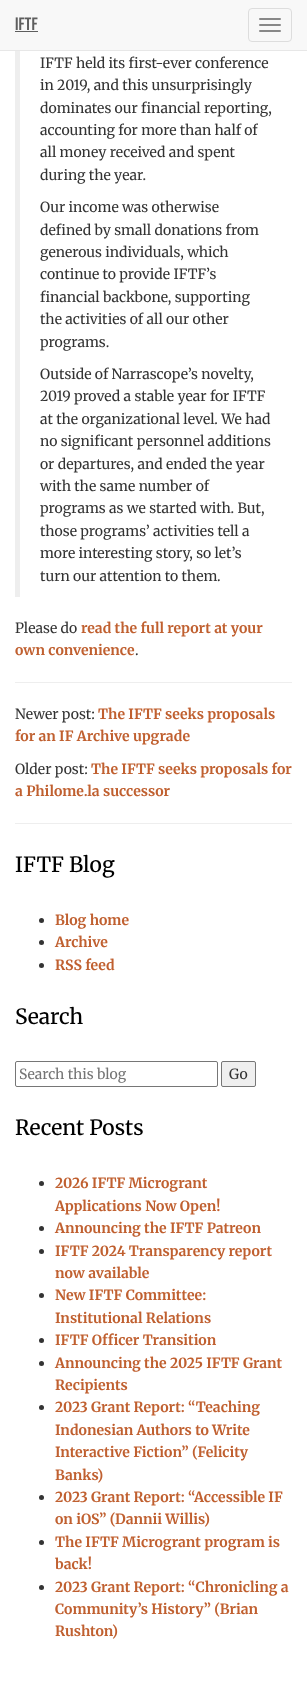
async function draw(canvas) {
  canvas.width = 307
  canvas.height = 1689
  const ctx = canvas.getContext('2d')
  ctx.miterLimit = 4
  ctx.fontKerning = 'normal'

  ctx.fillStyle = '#fff'
  ctx.fillRect(0, 0, 307, 1689)
  ctx.fillStyle = '#f8f8f8'
  ctx.fillRect(0, 0, 307, 50)
  ctx.fillStyle = '#e7e7e7'
  ctx.fillRect(0, 50, 307, 1)
  ctx.font = '18px Bebas Neue'
  ctx.fillStyle = '#5e5e5e'
  ctx.fillText('IFTF', 15, 30)
  ctx.fillRect(15, 31, 23, 1)
  ctx.beginPath()
  ctx.roundRect(248.5, 8.5, 43, 33, 3.5)
  ctx.strokeStyle = '#ddd'
  ctx.stroke()
  ctx.fillStyle = '#888'
  ctx.beginPath()
  ctx.roundRect(259, 18, 22, 2, 1)
  ctx.fill()
  ctx.beginPath()
  ctx.roundRect(259, 24, 22, 2, 1)
  ctx.fill()
  ctx.beginPath()
  ctx.roundRect(259, 30, 22, 2, 1)
  ctx.fill()
  ctx.fillStyle = '#eee'
  ctx.fillRect(15, 51, 5, 546)
  ctx.font = '14px Merriweather'
  ctx.fillStyle = '#333'
  ctx.fillText('IFTF held its first-ever conference', 40, 68)
  ctx.fillText('in 2019, and this unsurprisingly', 40, 90)
  ctx.fillText('dominates our financial reporting,', 40, 113)
  ctx.fillText('accounting for more than half of', 40, 135)
  ctx.fillText('all money received and spent', 40, 157)
  ctx.fillText('during the year.', 40, 180)
  ctx.fillText('Our income was otherwise', 40, 212)
  ctx.fillText('defined by small donations from', 40, 235)
  ctx.fillText('generous individuals, which', 40, 257)
  ctx.fillText('continue to provide IFTF’s', 40, 279)
  ctx.fillText('financial backbone, supporting', 40, 302)
  ctx.fillText('the activities of all our other', 40, 324)
  ctx.fillText('programs.', 40, 347)
  ctx.fillText('Outside of Narrascope’s novelty,', 40, 379)
  ctx.fillText('2019 proved a stable year for IFTF', 40, 401)
  ctx.fillText('at the organizational level. We had', 40, 424)
  ctx.fillText('no significant personnel additions', 40, 446)
  ctx.fillText('or departures, and ended the year', 40, 469)
  ctx.fillText('with the same number of', 40, 491)
  ctx.fillText('programs as we started with. But,', 40, 513)
  ctx.fillText('those programs’ activities tell a', 40, 536)
  ctx.fillText('more interesting story, so let’s', 40, 558)
  ctx.fillText('turn our attention to them.', 40, 581)
  ctx.fillText('Please do', 15, 633)
  ctx.font = 'bold 14px Merriweather'
  ctx.fillStyle = '#c06030'
  ctx.fillText('read the full report at your', 81, 633)
  ctx.fillText('own convenience', 15, 655)
  ctx.font = '14px Merriweather'
  ctx.fillStyle = '#333'
  ctx.fillText('.', 135, 655)
  ctx.fillStyle = '#eee'
  ctx.fillRect(15, 682, 277, 1)
  ctx.fillStyle = '#333'
  ctx.fillText('Newer post:', 15, 719)
  ctx.font = 'bold 14px Merriweather'
  ctx.fillStyle = '#c06030'
  ctx.fillText('The IFTF seeks proposals', 98, 719)
  ctx.fillText('for an IF Archive upgrade', 15, 741)
  ctx.font = '14px Merriweather'
  ctx.fillStyle = '#333'
  ctx.fillText('Older post:', 15, 774)
  ctx.font = 'bold 14px Merriweather'
  ctx.fillStyle = '#c06030'
  ctx.fillText('The IFTF seeks proposals for', 91, 774)
  ctx.fillText('a Philome.la successor', 15, 796)
  ctx.fillStyle = '#eee'
  ctx.fillRect(15, 823, 277, 1)
  ctx.font = '500 21px Merriweather'
  ctx.fillStyle = '#000'
  ctx.fillText('IFTF Blog', 15, 872)
  ctx.fillStyle = '#333'
  ctx.beginPath()
  ctx.arc(41.5, 920.5, 2.5, 0, 2 * Math.PI)
  ctx.fill()
  ctx.font = 'bold 14px Merriweather'
  ctx.fillStyle = '#c06030'
  ctx.fillText('Blog home', 55, 925)
  ctx.fillStyle = '#333'
  ctx.beginPath()
  ctx.arc(41.5, 942.5, 2.5, 0, 2 * Math.PI)
  ctx.fill()
  ctx.fillStyle = '#c06030'
  ctx.fillText('Archive', 55, 947)
  ctx.fillStyle = '#333'
  ctx.beginPath()
  ctx.arc(41.5, 965.5, 2.5, 0, 2 * Math.PI)
  ctx.fill()
  ctx.fillStyle = '#c06030'
  ctx.fillText('RSS feed', 55, 970)
  ctx.font = '500 21px Merriweather'
  ctx.fillStyle = '#000'
  ctx.fillText('Search', 15, 1024)
  ctx.beginPath()
  ctx.roundRect(15.5, 1061.5, 202, 25, 1.5)
  ctx.strokeStyle = '#767676'
  ctx.stroke()
  ctx.font = '14px Merriweather'
  ctx.fillStyle = '#757575'
  ctx.fillText('Search this blog', 19, 1079)
  ctx.fillStyle = '#efefef'
  ctx.beginPath()
  ctx.roundRect(221.5, 1061.5, 34, 25, 1.5)
  ctx.fill()
  ctx.stroke()
  ctx.fillStyle = '#333'
  ctx.fillText('Go', 229, 1079)
  ctx.font = '500 21px Merriweather'
  ctx.fillStyle = '#000'
  ctx.fillText('Recent Posts', 15, 1135)
  ctx.fillStyle = '#333'
  ctx.beginPath()
  ctx.arc(41.5, 1183.5, 2.5, 0, 2 * Math.PI)
  ctx.fill()
  ctx.font = 'bold 14px Merriweather'
  ctx.fillStyle = '#c06030'
  ctx.fillText('2026 IFTF Microgrant', 55, 1188)
  ctx.fillText('Applications Now Open!', 55, 1211)
  ctx.fillStyle = '#333'
  ctx.beginPath()
  ctx.arc(41.5, 1228.5, 2.5, 0, 2 * Math.PI)
  ctx.fill()
  ctx.fillStyle = '#c06030'
  ctx.fillText('Announcing the IFTF Patreon', 55, 1233)
  ctx.fillStyle = '#333'
  ctx.beginPath()
  ctx.arc(41.5, 1251.5, 2.5, 0, 2 * Math.PI)
  ctx.fill()
  ctx.fillStyle = '#c06030'
  ctx.fillText('IFTF 2024 Transparency report', 55, 1256)
  ctx.fillText('now available', 55, 1278)
  ctx.fillStyle = '#333'
  ctx.beginPath()
  ctx.arc(41.5, 1295.5, 2.5, 0, 2 * Math.PI)
  ctx.fill()
  ctx.fillStyle = '#c06030'
  ctx.fillText('New IFTF Committee:', 55, 1300)
  ctx.fillText('Institutional Relations', 55, 1323)
  ctx.fillStyle = '#333'
  ctx.beginPath()
  ctx.arc(41.5, 1340.5, 2.5, 0, 2 * Math.PI)
  ctx.fill()
  ctx.fillStyle = '#c06030'
  ctx.fillText('IFTF Officer Transition', 55, 1345)
  ctx.fillStyle = '#333'
  ctx.beginPath()
  ctx.arc(41.5, 1363.5, 2.5, 0, 2 * Math.PI)
  ctx.fill()
  ctx.fillStyle = '#c06030'
  ctx.fillText('Announcing the 2025 IFTF Grant', 55, 1368)
  ctx.fillText('Recipients', 55, 1390)
  ctx.fillStyle = '#333'
  ctx.beginPath()
  ctx.arc(41.5, 1407.5, 2.5, 0, 2 * Math.PI)
  ctx.fill()
  ctx.fillStyle = '#c06030'
  ctx.fillText('2023 Grant Report: “Teaching', 55, 1412)
  ctx.fillText('Indonesian Authors to Write', 55, 1435)
  ctx.fillText('Interactive Fiction” (Felicity', 55, 1457)
  ctx.fillText('Banks)', 55, 1480)
  ctx.fillStyle = '#333'
  ctx.beginPath()
  ctx.arc(41.5, 1497.5, 2.5, 0, 2 * Math.PI)
  ctx.fill()
  ctx.fillStyle = '#c06030'
  ctx.fillText('2023 Grant Report: “Accessible IF', 55, 1502)
  ctx.fillText('on iOS” (Dannii Willis)', 55, 1524)
  ctx.fillStyle = '#333'
  ctx.beginPath()
  ctx.arc(41.5, 1542.5, 2.5, 0, 2 * Math.PI)
  ctx.fill()
  ctx.fillStyle = '#c06030'
  ctx.fillText('The IFTF Microgrant program is', 55, 1547)
  ctx.fillText('back!', 55, 1569)
  ctx.fillStyle = '#333'
  ctx.beginPath()
  ctx.arc(41.5, 1587.5, 2.5, 0, 2 * Math.PI)
  ctx.fill()
  ctx.fillStyle = '#c06030'
  ctx.fillText('2023 Grant Report: “Chronicling a', 55, 1592)
  ctx.fillText('Community’s History” (Brian', 55, 1614)
  ctx.fillText('Rushton)', 55, 1636)
}

draw(document.querySelector('canvas'))
